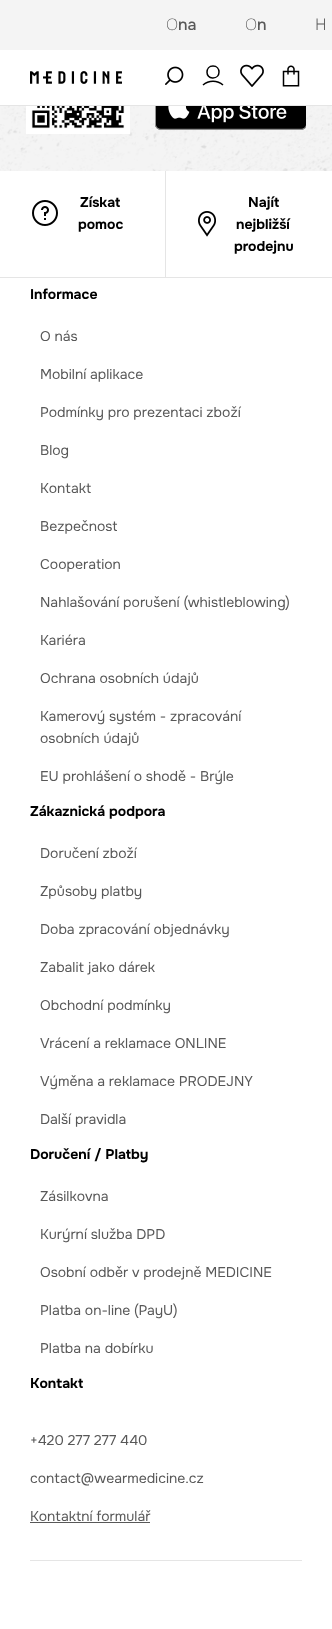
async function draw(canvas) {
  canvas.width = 332
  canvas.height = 1629
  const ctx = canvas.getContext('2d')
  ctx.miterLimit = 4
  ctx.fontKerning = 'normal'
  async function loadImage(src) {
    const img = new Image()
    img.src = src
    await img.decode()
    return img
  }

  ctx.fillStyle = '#fff'
  ctx.fillRect(0, 0, 332, 1629)
  ctx.fillStyle = '#f4f4f4'
  ctx.fillRect(0, 0, 332, 50)
  ctx.font = '200 16px Noto Sans'
  ctx.fillStyle = '#585858'
  ctx.fillText('O', 166, 30)
  ctx.font = '500 16px Onest'
  ctx.fillText('na', 178, 30)
  ctx.font = '200 16px Noto Sans'
  ctx.fillText('O', 245, 30)
  ctx.font = '500 16px Onest'
  ctx.fillText('n', 257, 30)
  ctx.font = '300 16px Noto Sans'
  ctx.fillText('H', 315, 30)
  ctx.fillStyle = '#e5e5e5'
  ctx.fillRect(0, 105, 332, 1)
  ctx.drawImage(await loadImage('image0.png'), 30, 71, 92, 13)
  ctx.drawImage(await loadImage('image1.png'), 165, 66, 19, 19)
  ctx.beginPath()
  ctx.moveTo(213, 66)
  ctx.bezierCurveTo(205, 66, 205, 78.5, 213, 78)
  ctx.bezierCurveTo(221, 78, 221, 66, 213, 66)
  ctx.closePath()
  ctx.moveTo(223, 85)
  ctx.bezierCurveTo(217.5, 80, 208.5, 80, 203, 85)
  ctx.strokeStyle = '#000'
  ctx.lineWidth = 1.5
  ctx.stroke()
  ctx.drawImage(await loadImage('image2.png'), 240, 64, 24, 23)
  ctx.drawImage(await loadImage('image3.png'), 282, 65, 18, 22)
  ctx.drawImage(await loadImage('image4.png'), 0, 106, 332, 65)
  ctx.drawImage(await loadImage('image5.png'), 26, 106, 104, 28)
  ctx.drawImage(await loadImage('image6.png'), 155, 106, 151, 24)
  ctx.fillRect(0, 277, 332, 1)
  ctx.fillRect(165, 171, 1, 106)
  ctx.drawImage(await loadImage('image7.png'), 32, 200, 26, 26)
  ctx.font = 'bold 14px Onest'
  ctx.fillStyle = '#000'
  ctx.fillText('Získat', 80, 207)
  ctx.fillText('pomoc', 78, 229)
  ctx.fillText('Najít', 248, 207)
  ctx.drawImage(await loadImage('image8.png'), 198, 211, 18, 26)
  ctx.fillText('nejbližší', 236, 229)
  ctx.fillText('prodejnu', 234, 251)
  ctx.fillText('Informace', 30, 299)
  ctx.font = '14px Onest'
  ctx.fillStyle = '#585858'
  ctx.fillText('O nás', 40, 341)
  ctx.fillText('Mobilní aplikace', 40, 379)
  ctx.fillText('Podmínky pro prezentaci zboží', 40, 417)
  ctx.fillText('Blog', 40, 455)
  ctx.fillText('Kontakt', 40, 493)
  ctx.fillText('Bezpečnost', 40, 531)
  ctx.fillText('Cooperation', 40, 569)
  ctx.fillText('Nahlašování porušení (whistleblowing)', 40, 607)
  ctx.fillText('Kariéra', 40, 645)
  ctx.fillText('Ochrana osobních údajů', 40, 683)
  ctx.fillText('Kamerový systém - zpracování', 40, 721)
  ctx.fillText('osobních údajů', 40, 743)
  ctx.fillText('EU prohlášení o shodě - Brýle', 40, 781)
  ctx.font = 'bold 14px Onest'
  ctx.fillStyle = '#000'
  ctx.fillText('Zákaznická podpora', 30, 816)
  ctx.font = '14px Onest'
  ctx.fillStyle = '#585858'
  ctx.fillText('Doručení zboží', 40, 858)
  ctx.fillText('Způsoby platby', 40, 896)
  ctx.fillText('Doba zpracování objednávky', 40, 934)
  ctx.fillText('Zabalit jako dárek', 40, 972)
  ctx.fillText('Obchodní podmínky', 40, 1010)
  ctx.fillText('Vrácení a reklamace ONLINE', 40, 1048)
  ctx.fillText('Výměna a reklamace PRODEJNY', 40, 1086)
  ctx.fillText('Další pravidla', 40, 1124)
  ctx.font = 'bold 14px Onest'
  ctx.fillStyle = '#000'
  ctx.fillText('Doručení / Platby', 30, 1159)
  ctx.font = '14px Onest'
  ctx.fillStyle = '#585858'
  ctx.fillText('Zásilkovna', 40, 1201)
  ctx.fillText('Kurýrní služba DPD', 40, 1239)
  ctx.fillText('Osobní odběr v prodejně MEDICINE', 40, 1277)
  ctx.fillText('Platba on-line (PayU)', 40, 1315)
  ctx.fillText('Platba na dobírku', 40, 1353)
  ctx.font = 'bold 14px Onest'
  ctx.fillStyle = '#000'
  ctx.fillText('Kontakt', 30, 1388)
  ctx.fillStyle = '#e5e5e5'
  ctx.fillRect(30, 1560, 272, 1)
  ctx.font = '14px Onest'
  ctx.fillStyle = '#585858'
  ctx.fillText('+420 277 277 440', 30, 1445)
  ctx.fillText('contact@wearmedicine.cz', 30, 1483)
  ctx.fillText('Kontaktní formulář', 30, 1521)
  ctx.fillRect(30, 1522, 120, 1)
}

draw(document.querySelector('canvas'))
